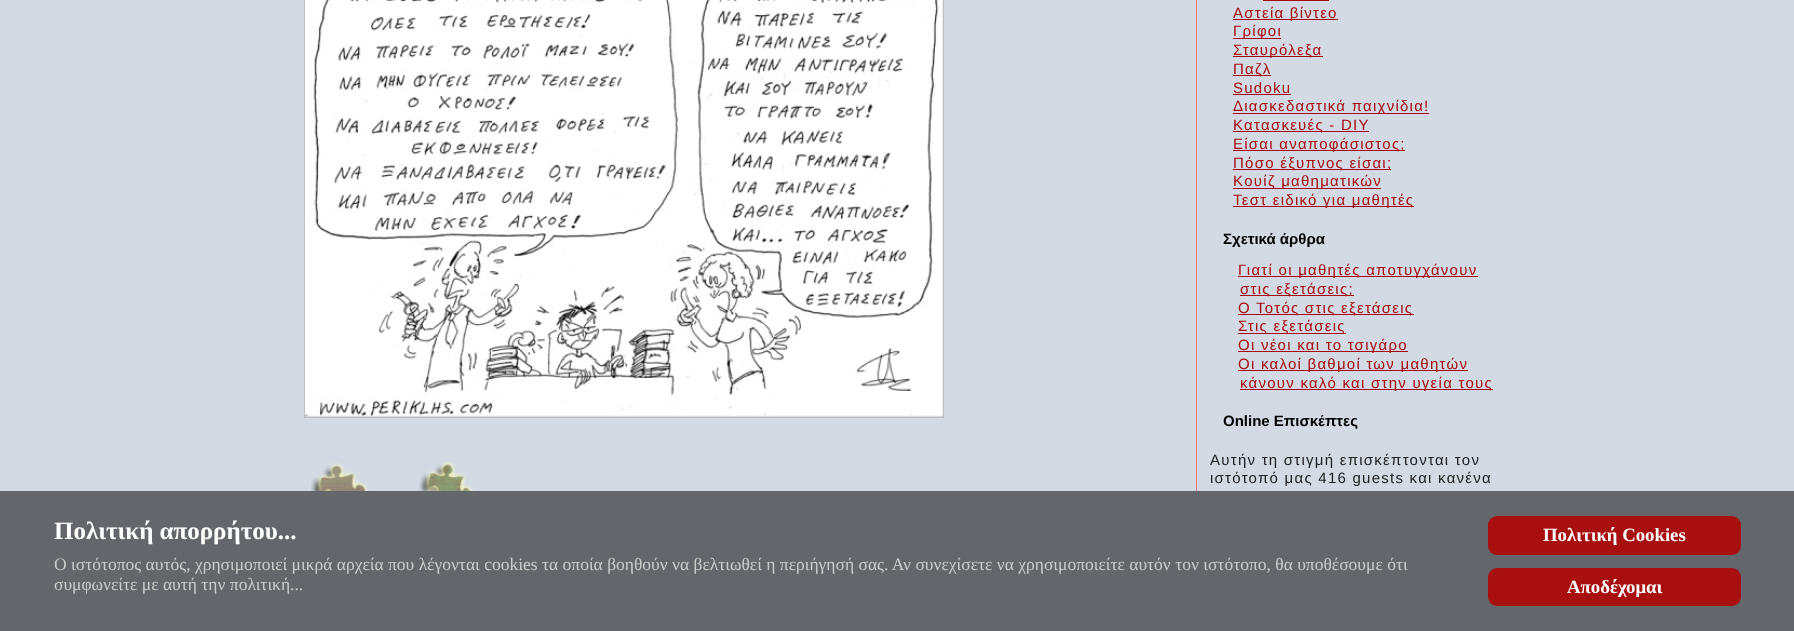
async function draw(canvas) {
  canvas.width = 1794
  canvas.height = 631
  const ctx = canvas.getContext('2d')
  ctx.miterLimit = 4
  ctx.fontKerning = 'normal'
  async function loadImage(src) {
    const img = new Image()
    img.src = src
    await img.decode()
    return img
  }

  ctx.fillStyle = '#d3dae4'
  ctx.fillRect(0, 0, 1794, 631)
  ctx.strokeStyle = '#c0c0c0'
  ctx.strokeRect(304.5, -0.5, 639, 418)
  ctx.drawImage(await loadImage('image0.png'), 305, 0, 638, 416)
  ctx.drawImage(await loadImage('image1.png'), 311, 462, 164, 29)
  ctx.fillStyle = '#f76e75'
  ctx.fillRect(1196, 0, 1, 491)
  ctx.fillStyle = '#a50910'
  ctx.fillRect(1263, 0, 66, 1)
  ctx.fillRect(1233, 19, 105, 1)
  ctx.letterSpacing = '1.25px'
  ctx.font = '15px Liberation Sans'
  ctx.fillText('Αστεία βίντεο', 1233, 18)
  ctx.fillRect(1233, 38, 48, 1)
  ctx.fillText('Γρίφοι', 1233, 36)
  ctx.fillRect(1233, 56, 90, 1)
  ctx.fillText('Σταυρόλεξα', 1233, 55)
  ctx.fillRect(1233, 75, 38, 1)
  ctx.fillText('Παζλ', 1233, 74)
  ctx.fillText('Sudoku', 1233, 93)
  ctx.fillRect(1233, 94, 58, 1)
  ctx.fillRect(1233, 113, 196, 1)
  ctx.fillText('Διασκεδαστικά παιχνίδια!', 1233, 111)
  ctx.fillRect(1233, 131, 136, 1)
  ctx.fillText('Κατασκευές - DIY', 1233, 130)
  ctx.fillRect(1233, 150, 172, 1)
  ctx.fillText('Είσαι αναποφάσιστος;', 1233, 149)
  ctx.fillRect(1233, 169, 158, 1)
  ctx.fillText('Πόσο έξυπνος είσαι;', 1233, 168)
  ctx.fillRect(1233, 188, 148, 1)
  ctx.fillText('Kουίζ μαθηματικών', 1233, 186)
  ctx.fillRect(1233, 206, 181, 1)
  ctx.fillText('Τεστ ειδικό για μαθητές', 1233, 205)
  ctx.letterSpacing = '0px'
  ctx.font = 'bold 15px Liberation Sans'
  ctx.fillStyle = '#000'
  ctx.fillText('Σχετικά άρθρα', 1223, 244)
  ctx.fillStyle = '#a50910'
  ctx.fillRect(1238, 276, 240, 1)
  ctx.letterSpacing = '1.25px'
  ctx.font = '15px Liberation Sans'
  ctx.fillText('Γιατί οι μαθητές αποτυγχάνουν', 1238, 275)
  ctx.fillRect(1240, 295, 114, 1)
  ctx.fillText('στις εξετάσεις;', 1240, 294)
  ctx.fillRect(1238, 314, 176, 1)
  ctx.fillText('Ο Τοτός στις εξετάσεις', 1238, 313)
  ctx.fillRect(1238, 333, 108, 1)
  ctx.fillText('Στις εξετάσεις', 1238, 331)
  ctx.fillRect(1238, 351, 170, 1)
  ctx.fillText('Οι νέοι και το τσιγάρο', 1238, 350)
  ctx.fillRect(1238, 370, 230, 1)
  ctx.fillText('Οι καλοί βαθμοί των μαθητών', 1238, 369)
  ctx.fillRect(1240, 389, 253, 1)
  ctx.fillText('κάνουν καλό και στην υγεία τους', 1240, 388)
  ctx.letterSpacing = '0px'
  ctx.font = 'bold 15px Liberation Sans'
  ctx.fillStyle = '#000'
  ctx.fillText('Online Επισκέπτες', 1223, 426)
  ctx.letterSpacing = '1.25px'
  ctx.font = '15px Liberation Sans'
  ctx.fillStyle = '#212121'
  ctx.fillText('Αυτήν τη στιγμή επισκέπτονται τον', 1210, 465)
  ctx.fillText('ιστότοπό μας 416 guests και κανένα', 1210, 483)
  ctx.fillStyle = '#63676b'
  ctx.fillRect(0, 491, 1794, 140)
  ctx.letterSpacing = '0px'
  ctx.font = 'bold 25px Liberation Serif'
  ctx.fillStyle = '#fff'
  ctx.fillText('Πολιτική απορρήτου...', 54, 539)
  ctx.font = '17.5px Liberation Serif'
  ctx.fillStyle = '#ccc'
  ctx.fillText('Ο ιστότοπος αυτός, χρησιμοποιεί μικρά αρχεία που λέγονται cookies τα οποία βοηθούν να βελτιωθεί η περιήγησή σας. Αν συνεχίσετε να χρησιμοποιείτε αυτόν τον ιστότοπο, θα υποθέσουμε ότι', 54, 570)
  ctx.fillText('συμφωνείτε με αυτή την πολιτική...', 54, 590)
  ctx.fillStyle = '#a80f0f'
  ctx.beginPath()
  ctx.roundRect(1488, 516, 253, 39, 9)
  ctx.fill()
  ctx.font = 'bold 18.75px Liberation Serif'
  ctx.fillStyle = '#fff'
  ctx.fillText('Πολιτική Cookies', 1543, 541)
  ctx.fillStyle = '#a80f0f'
  ctx.beginPath()
  ctx.roundRect(1488, 568, 253, 38, 9)
  ctx.fill()
  ctx.fillStyle = '#fff'
  ctx.fillText('Αποδέχομαι', 1567, 593)
}

draw(document.querySelector('canvas'))
